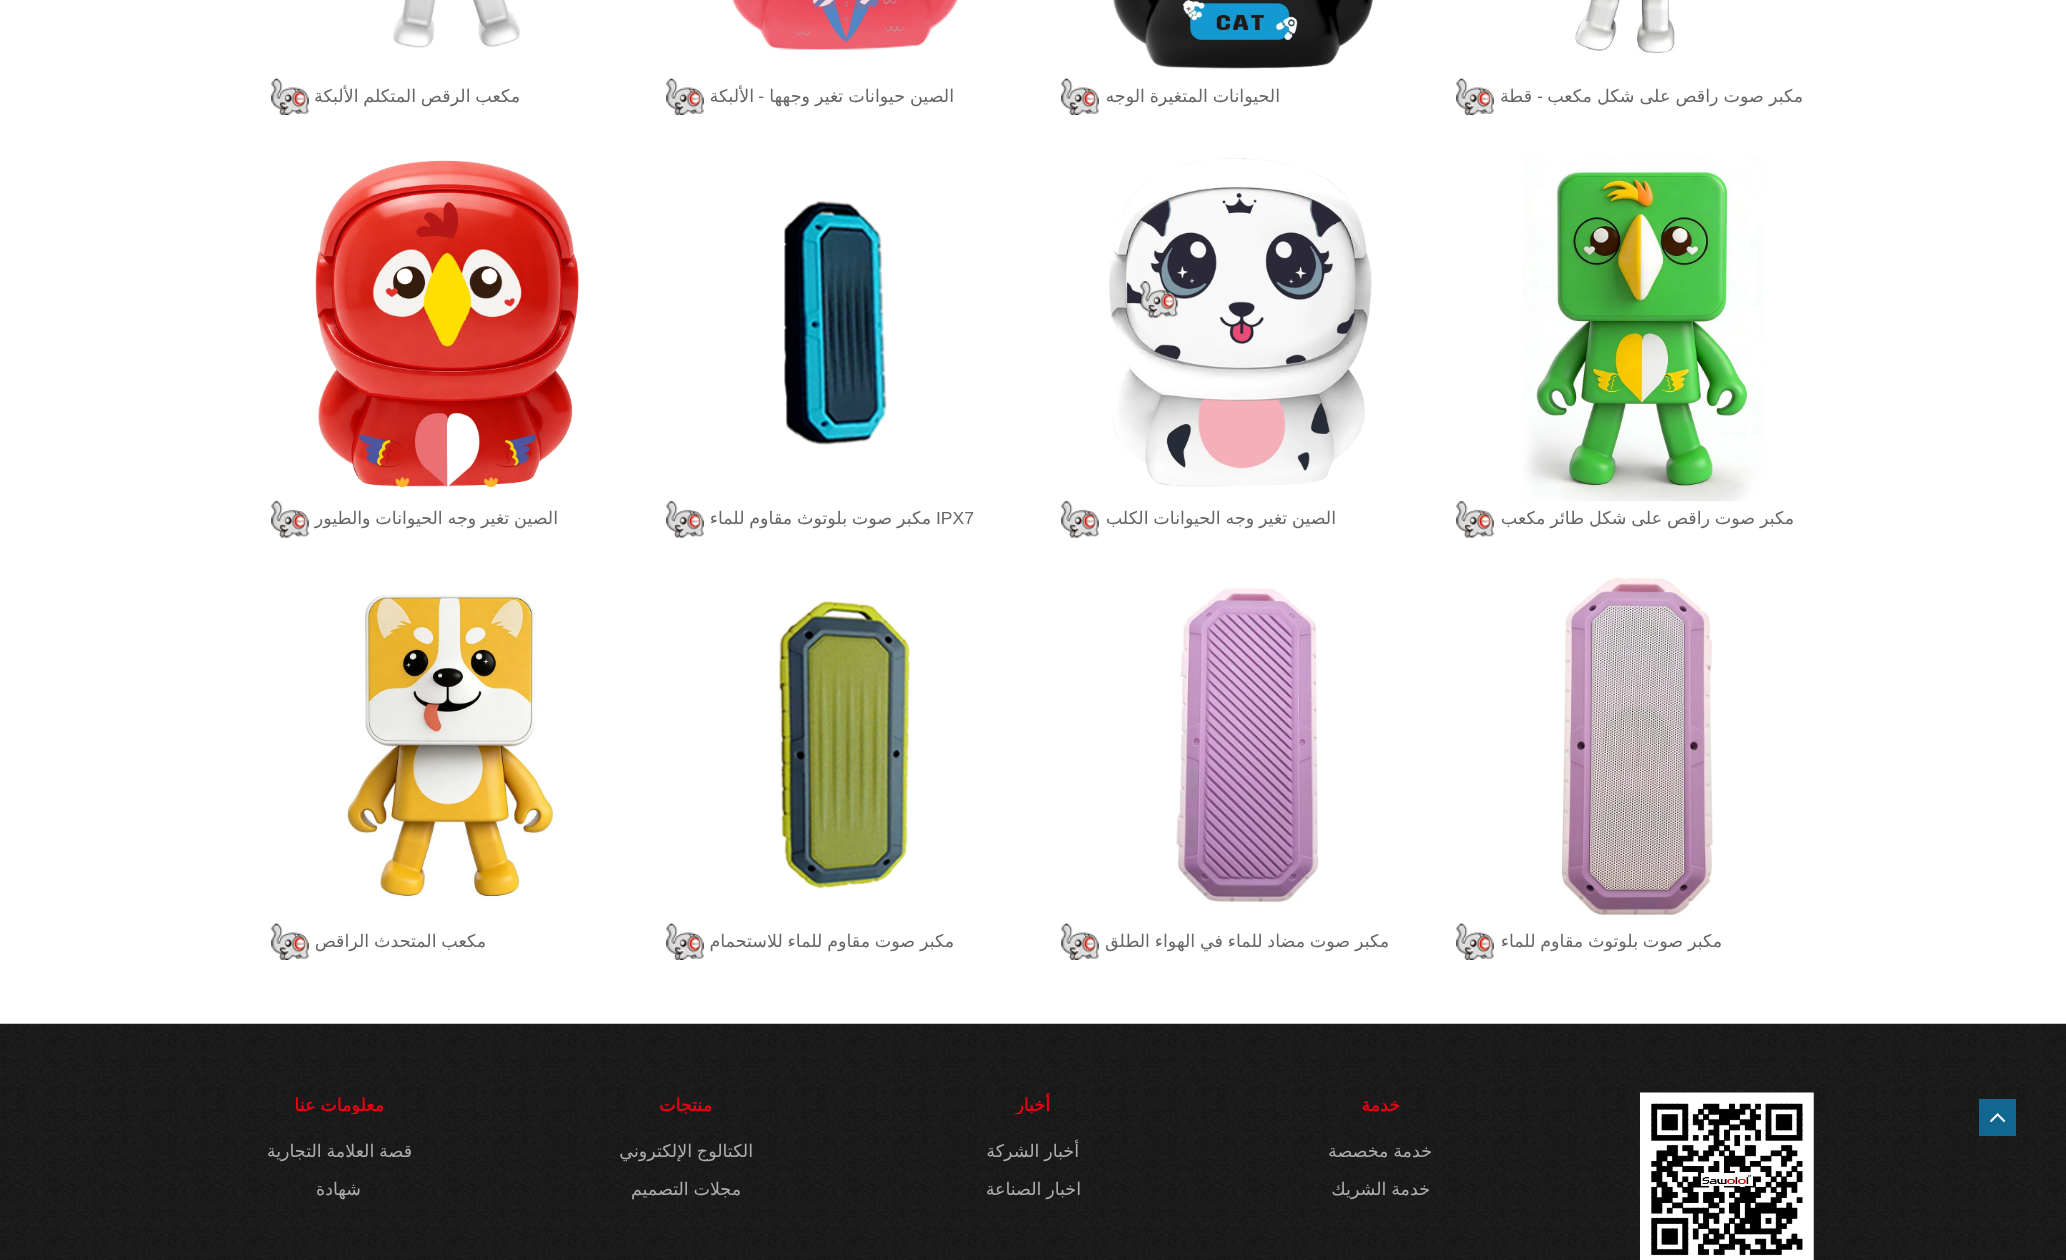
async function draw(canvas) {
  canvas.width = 2066
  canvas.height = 1260
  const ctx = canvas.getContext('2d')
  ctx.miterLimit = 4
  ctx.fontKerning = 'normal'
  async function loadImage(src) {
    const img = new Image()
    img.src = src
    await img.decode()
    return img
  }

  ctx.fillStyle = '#fff'
  ctx.fillRect(0, 0, 2066, 1260)
  ctx.drawImage(await loadImage('image0.png'), 1575, 0, 100, 53)
  ctx.wordSpacing = '-0.5px'
  ctx.direction = 'rtl'
  ctx.font = '17.5px DejaVu Sans'
  ctx.fillStyle = '#666'
  ctx.fillText('مكبر صوت راقص على شكل مكعب', 1803, 102)
  ctx.wordSpacing = '0px'
  ctx.font = '17.5px Liberation Sans'
  ctx.fillText('-', 1543, 102)
  ctx.font = '17.5px DejaVu Sans'
  ctx.fillText('قطة', 1532, 102)
  ctx.drawImage(await loadImage('image1.png'), 1456, 78, 38, 37)
  ctx.drawImage(await loadImage('image2.png'), 1113, 0, 260, 69)
  ctx.wordSpacing = '-0.75px'
  ctx.fillText('الحيوانات المتغيرة الوجه', 1280, 102)
  ctx.drawImage(await loadImage('image1.png'), 1061, 78, 38, 37)
  ctx.drawImage(await loadImage('image3.png'), 732, 0, 226, 50)
  ctx.wordSpacing = '-0.5px'
  ctx.fillText('الصين حيوانات تغير وجهها', 954, 102)
  ctx.wordSpacing = '0px'
  ctx.font = '17.5px Liberation Sans'
  ctx.fillText('-', 764, 102)
  ctx.font = '17.5px DejaVu Sans'
  ctx.fillText('الألبكة', 754, 102)
  ctx.drawImage(await loadImage('image1.png'), 666, 78, 38, 37)
  ctx.drawImage(await loadImage('image4.png'), 393, 0, 127, 48)
  ctx.wordSpacing = '-0.75px'
  ctx.fillText('مكعب الرقص المتكلم الألبكة', 520, 102)
  ctx.drawImage(await loadImage('image1.png'), 271, 78, 38, 37)
  ctx.drawImage(await loadImage('image5.png'), 1522, 157, 242, 345)
  ctx.fillText('مكبر صوت راقص على شكل طائر مكعب', 1794, 524)
  ctx.drawImage(await loadImage('image6.png'), 1456, 501, 38, 37)
  ctx.drawImage(await loadImage('image7.png'), 1109, 158, 263, 329)
  ctx.fillText('الصين تغير وجه الحيوانات الكلب', 1336, 524)
  ctx.drawImage(await loadImage('image6.png'), 1061, 501, 38, 37)
  ctx.drawImage(await loadImage('image8.png'), 784, 201, 103, 244)
  ctx.wordSpacing = '0px'
  ctx.direction = 'ltr'
  ctx.font = '17.5px Liberation Sans'
  ctx.fillText('IPX7', 936, 524)
  ctx.wordSpacing = '-0.75px'
  ctx.direction = 'rtl'
  ctx.font = '17.5px DejaVu Sans'
  ctx.fillText('مكبر صوت بلوتوث مقاوم للماء', 931, 524)
  ctx.drawImage(await loadImage('image6.png'), 666, 501, 38, 37)
  ctx.drawImage(await loadImage('image9.png'), 315, 160, 264, 328)
  ctx.fillText('الصين تغير وجه الحيوانات والطيور', 558, 524)
  ctx.drawImage(await loadImage('image6.png'), 271, 501, 38, 37)
  ctx.drawImage(await loadImage('image10.png'), 1561, 577, 152, 340)
  ctx.fillText('مكبر صوت بلوتوث مقاوم للماء', 1722, 947)
  ctx.drawImage(await loadImage('image1.png'), 1456, 923, 38, 37)
  ctx.drawImage(await loadImage('image11.png'), 1176, 588, 143, 316)
  ctx.fillText('مكبر صوت مضاد للماء في الهواء الطلق', 1389, 947)
  ctx.drawImage(await loadImage('image1.png'), 1061, 923, 38, 37)
  ctx.drawImage(await loadImage('image12.png'), 778, 601, 133, 288)
  ctx.fillText('مكبر صوت مقاوم للماء للاستحمام', 954, 947)
  ctx.drawImage(await loadImage('image1.png'), 666, 923, 38, 37)
  ctx.drawImage(await loadImage('image13.png'), 346, 594, 209, 304)
  ctx.fillText('مكعب المتحدث الراقص', 486, 947)
  ctx.drawImage(await loadImage('image1.png'), 271, 923, 38, 37)
  ctx.drawImage(await loadImage('image14.png'), 0, 1023, 2066, 237)
  ctx.drawImage(await loadImage('image15.png'), 1140, 281, 38, 37)
  ctx.fillStyle = '#11678f'
  ctx.fillRect(1979, 1099, 37, 37)
  ctx.drawImage(await loadImage('image16.png'), 1990, 1113, 16, 10)
  ctx.drawImage(await loadImage('image17.png'), 1640, 1092, 174, 168)
  ctx.wordSpacing = '0px'
  ctx.font = 'bold 17.5px DejaVu Sans'
  ctx.fillStyle = '#e60012'
  ctx.fillText('خدمة', 1400, 1111)
  ctx.wordSpacing = '-0.75px'
  ctx.font = '17.5px DejaVu Sans'
  ctx.fillStyle = '#aeaeae'
  ctx.fillText('خدمة مخصصة', 1432, 1157)
  ctx.fillText('خدمة الشريك', 1430, 1195)
  ctx.save()
  ctx.beginPath()
  ctx.rect(860, 1093, 346, 21)
  ctx.clip()
  ctx.wordSpacing = '0px'
  ctx.font = 'bold 17.5px DejaVu Sans'
  ctx.fillStyle = '#e60012'
  ctx.fillText('أخبار', 1050, 1111)
  ctx.restore()
  ctx.fillText('أخبار الشركة', 1079, 1157)
  ctx.fillText('اخبار الصناعة', 1081, 1195)
  ctx.wordSpacing = '0px'
  ctx.font = 'bold 17.5px DejaVu Sans'
  ctx.fillStyle = '#e60012'
  ctx.fillText('منتجات', 712, 1111)
  ctx.wordSpacing = '-0.75px'
  ctx.font = '17.5px DejaVu Sans'
  ctx.fillStyle = '#aeaeae'
  ctx.fillText('الكتالوج الإلكتروني', 753, 1157)
  ctx.fillText('مجلات التصميم', 741, 1195)
  ctx.save()
  ctx.beginPath()
  ctx.rect(165, 1093, 348, 21)
  ctx.clip()
  ctx.font = 'bold 17.5px DejaVu Sans'
  ctx.fillStyle = '#e60012'
  ctx.fillText('معلومات عنا', 384, 1111)
  ctx.restore()
  ctx.fillText('قصة العلامة التجارية', 412, 1157)
  ctx.wordSpacing = '0px'
  ctx.fillText('شهادة', 361, 1195)
}

draw(document.querySelector('canvas'))
